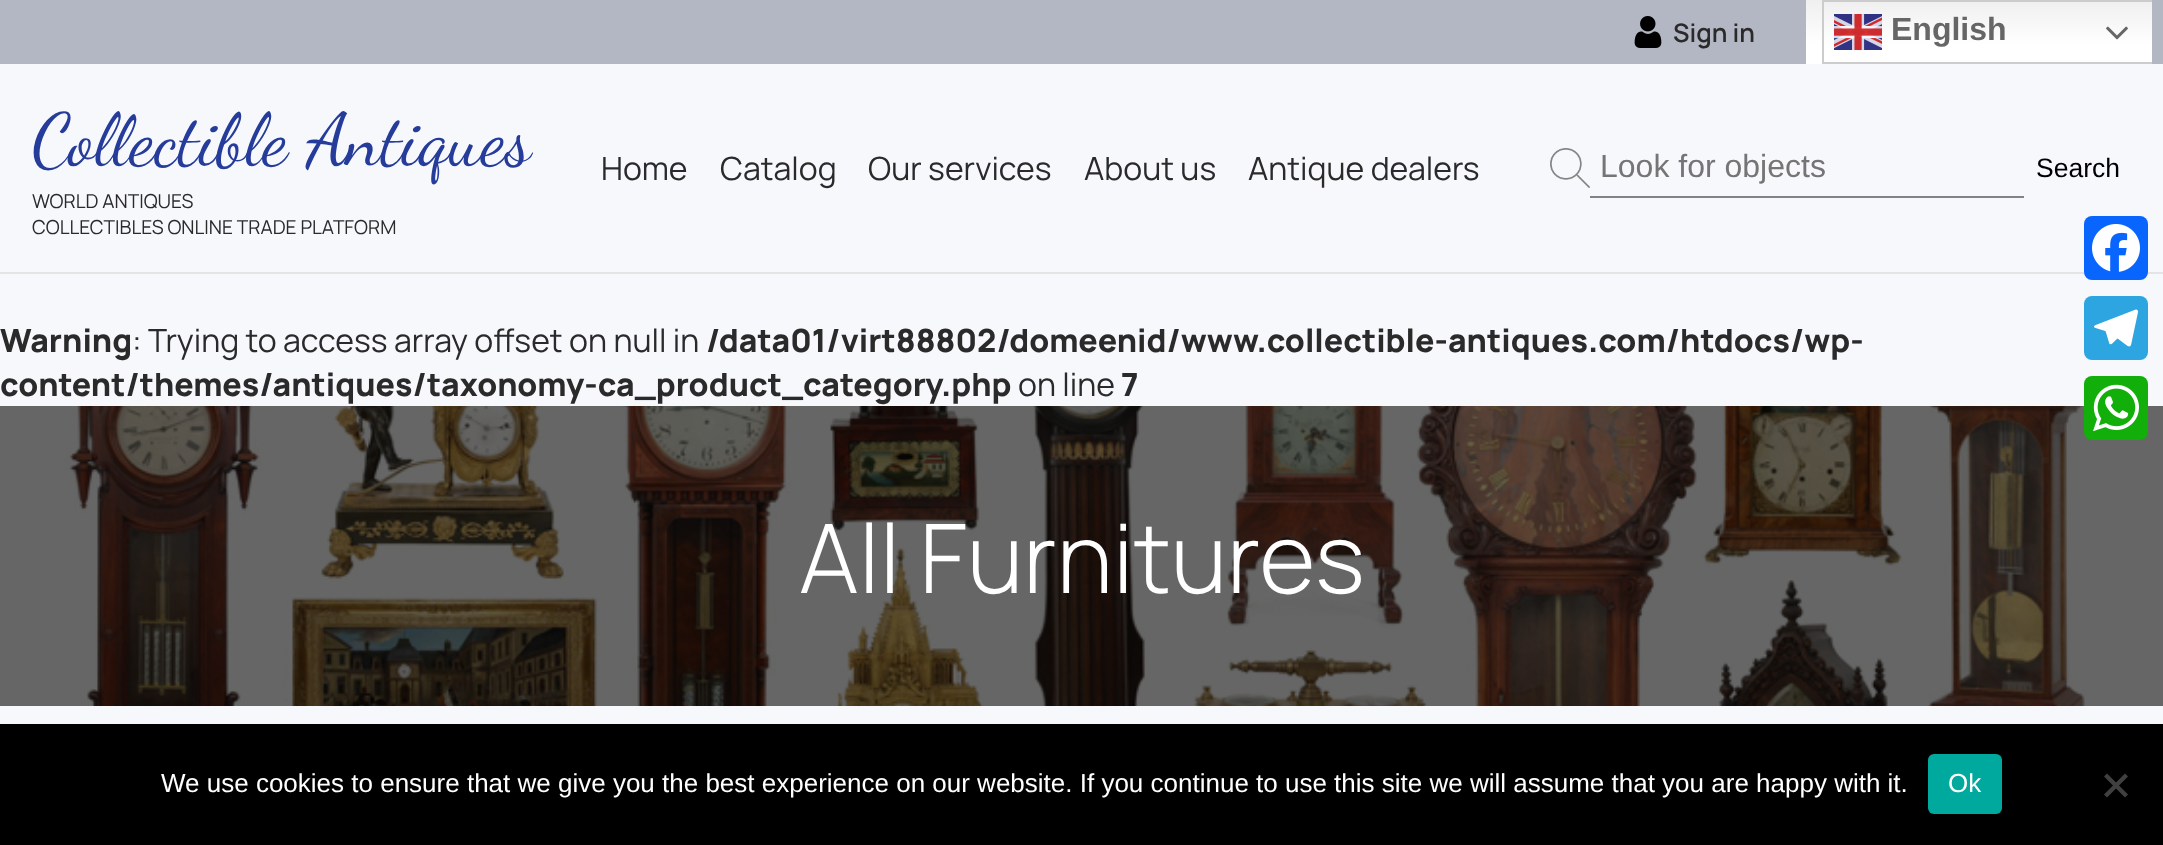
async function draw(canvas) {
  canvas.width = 2163
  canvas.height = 845
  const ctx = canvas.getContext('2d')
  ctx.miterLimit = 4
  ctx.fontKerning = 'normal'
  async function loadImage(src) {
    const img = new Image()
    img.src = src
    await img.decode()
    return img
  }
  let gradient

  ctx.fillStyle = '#f7f8fc'
  ctx.fillRect(0, 0, 2163, 845)
  ctx.fillStyle = '#e4e4e4'
  ctx.fillRect(0, 272, 2163, 2)
  ctx.fillStyle = '#b3b7c3'
  ctx.fillRect(0, 0, 2163, 64)
  ctx.drawImage(await loadImage('image0.png'), 1634, 16, 28, 32)
  ctx.font = '600 25.5px Manrope'
  ctx.fillStyle = '#2a2a2b'
  ctx.fillText('Sign in', 1673, 42)
  gradient = ctx.createLinearGradient(1979, 0, 1979, 64)
  gradient.addColorStop(0, '#efefef')
  gradient.addColorStop(0.7, '#fff')
  ctx.fillStyle = gradient
  ctx.fillRect(1806, 0, 346, 64)
  ctx.save()
  ctx.beginPath()
  ctx.rect(1806, 0, 346, 64)
  ctx.clip()
  ctx.strokeStyle = '#ccc'
  ctx.lineWidth = 2
  ctx.strokeRect(1823, 1, 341, 62)
  ctx.restore()
  ctx.drawImage(await loadImage('image1.png'), 1834, 14, 48, 36)
  ctx.font = 'bold 32px Liberation Sans'
  ctx.fillStyle = '#666'
  ctx.fillText('English', 1891, 40)
  ctx.drawImage(await loadImage('image2.png'), 2106, 26, 22, 14)
  ctx.font = '73.5px Dancing Script'
  ctx.fillStyle = '#253c9a'
  ctx.fillText('Collectible Antiques', 32, 164)
  ctx.font = '19.25px Manrope'
  ctx.fillStyle = '#2a2a2b'
  ctx.fillText('WORLD ANTIQUES', 32, 208)
  ctx.fillText('COLLECTIBLES ONLINE TRADE PLATFORM', 32, 234)
  ctx.font = '32px Manrope'
  ctx.fillText('Home', 601, 180)
  ctx.fillText('Catalog', 720, 180)
  ctx.fillText('Our services', 868, 180)
  ctx.fillText('About us', 1084, 180)
  ctx.fillText('Antique dealers', 1248, 180)
  ctx.drawImage(await loadImage('image3.png'), 1550, 148, 40, 40)
  ctx.fillStyle = '#828282'
  ctx.fillRect(1590, 196, 434, 2)
  ctx.font = '32px Liberation Sans'
  ctx.fillStyle = '#757575'
  ctx.fillText('Look for objects', 1600, 177)
  ctx.font = '26.5px Liberation Sans'
  ctx.fillStyle = '#000'
  ctx.fillText('Search', 2036, 177)
  ctx.font = '800 32px Manrope'
  ctx.fillStyle = '#2a2a2b'
  ctx.fillText('Warning', 0, 352)
  ctx.font = '32px Manrope'
  ctx.fillText(': Trying to access array offset on null in', 132, 352)
  ctx.font = '800 32px Manrope'
  ctx.fillText('/data01/virt88802/domeenid/www.collectible-antiques.com/htdocs/wp-', 706, 352)
  ctx.fillStyle = '#0866ff'
  ctx.beginPath()
  ctx.roundRect(2084, 216, 64, 64, 8)
  ctx.fill()
  ctx.drawImage(await loadImage('image4.png'), 2092, 224, 48, 48)
  ctx.fillStyle = '#2ca5e0'
  ctx.beginPath()
  ctx.roundRect(2084, 296, 64, 64, 8)
  ctx.fill()
  ctx.drawImage(await loadImage('image5.png'), 2094, 309, 44, 38)
  ctx.fillStyle = '#000'
  ctx.fillRect(0, 406, 2163, 300)
  ctx.drawImage(await loadImage('image7.png'), 0, 406, 2163, 300)
  ctx.fillStyle = '#12af0a'
  ctx.beginPath()
  ctx.roundRect(2084, 376, 64, 64, 8)
  ctx.fill()
  ctx.drawImage(await loadImage('image6.png'), 2093, 384, 46, 48)
  ctx.fillStyle = '#2a2a2b'
  ctx.fillText('content/themes/antiques/taxonomy-ca_product_category.php', 0, 396)
  ctx.font = '32px Manrope'
  ctx.fillText('on line', 1018, 396)
  ctx.font = '800 32px Manrope'
  ctx.fillText('7', 1121, 396)
  ctx.font = '300 96px Manrope'
  ctx.fillStyle = '#fff'
  ctx.fillText('All Furnitures', 799, 593)
  ctx.fillStyle = '#000'
  ctx.fillRect(0, 724, 2163, 121)
  ctx.font = '26px Liberation Sans'
  ctx.fillStyle = '#fff'
  ctx.fillText('We use cookies to ensure that we give you the best experience on our website. If you continue to use this site we will assume that you are happy with it.', 161, 792)
  ctx.fillStyle = '#00a99d'
  ctx.beginPath()
  ctx.roundRect(1928, 754, 74, 60, 6)
  ctx.fill()
  ctx.fillStyle = '#fff'
  ctx.fillText('Ok', 1948, 792)
  ctx.fillStyle = '#404040'
  ctx.beginPath()
  ctx.moveTo(2125, 773.5)
  ctx.lineTo(2128, 776.5)
  ctx.lineTo(2107, 797.5)
  ctx.lineTo(2104, 794.5)
  ctx.closePath()
  ctx.fill()
  ctx.beginPath()
  ctx.moveTo(2104, 776.5)
  ctx.lineTo(2107, 773.5)
  ctx.lineTo(2128, 794.5)
  ctx.lineTo(2125, 797.5)
  ctx.closePath()
  ctx.fill()
}

draw(document.querySelector('canvas'))
